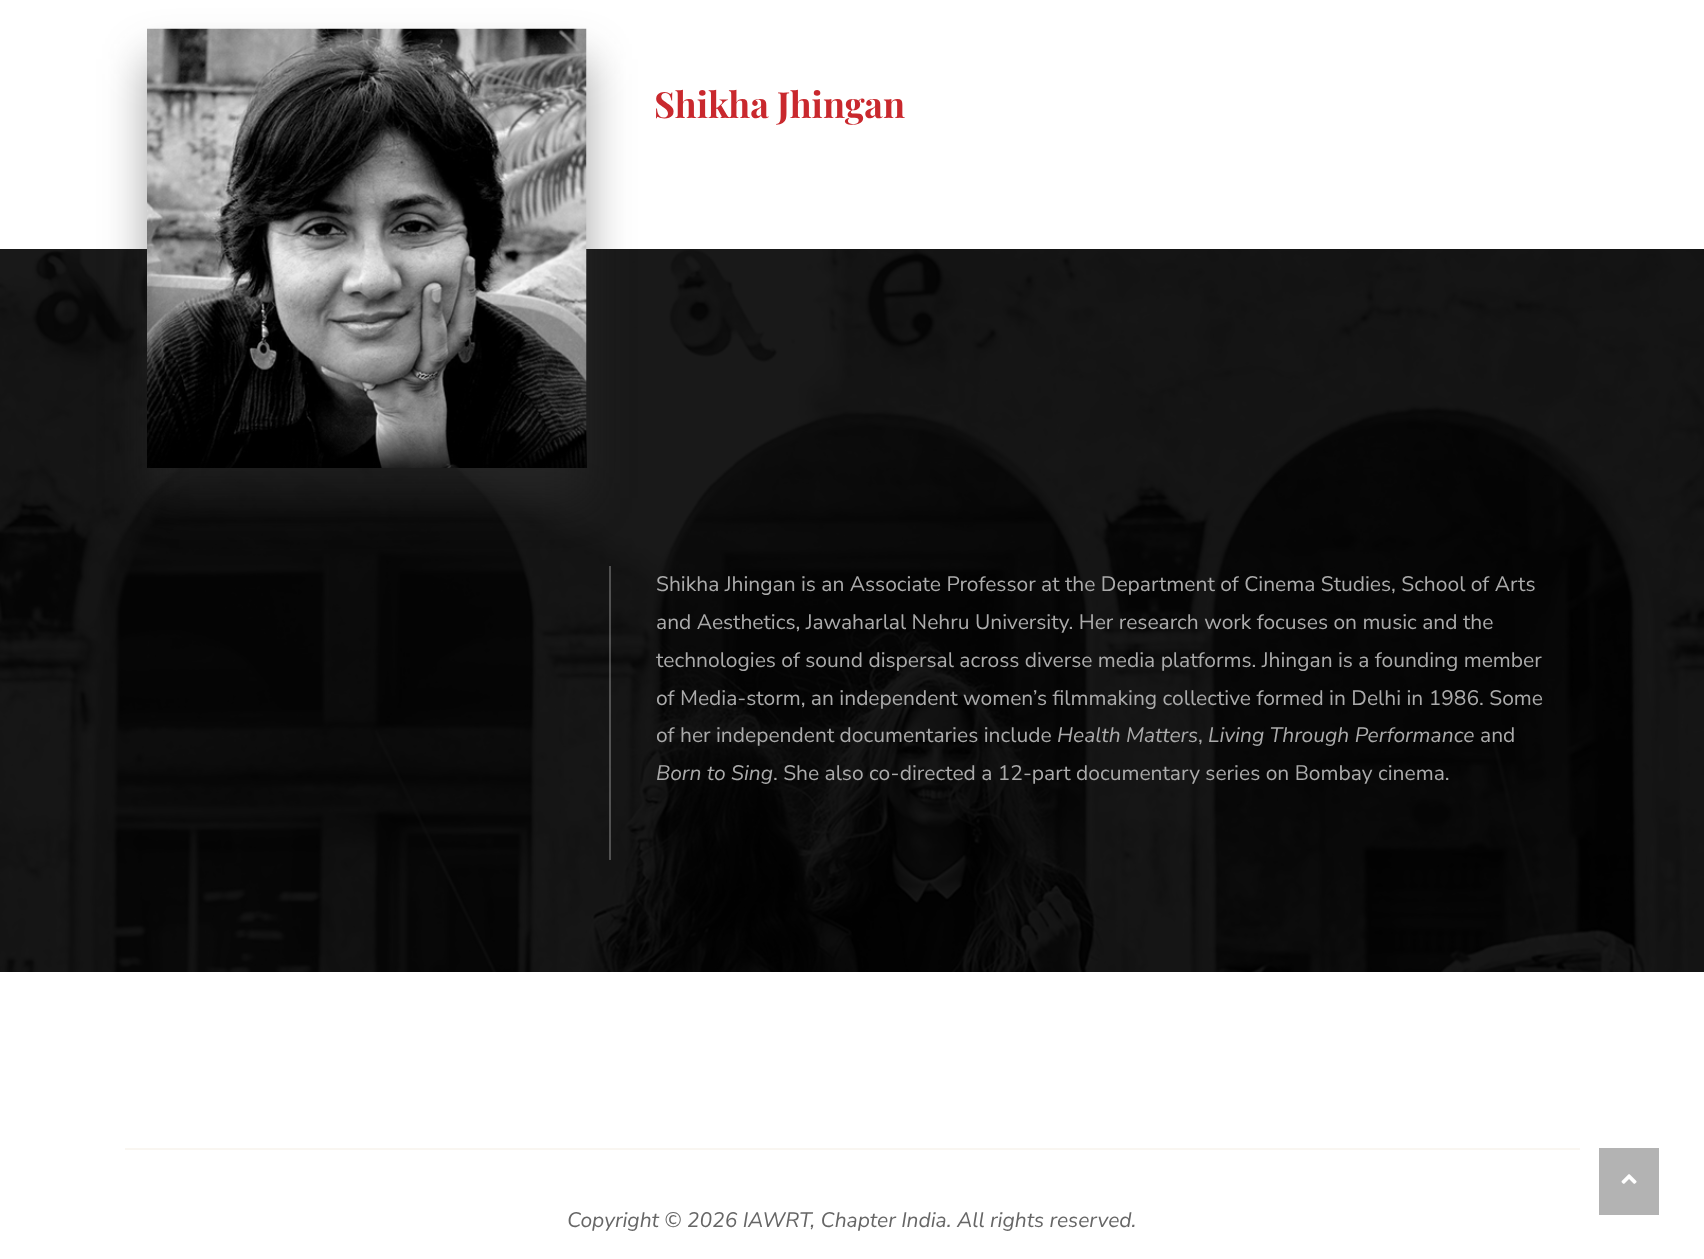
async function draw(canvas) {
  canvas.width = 1704
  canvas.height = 1259
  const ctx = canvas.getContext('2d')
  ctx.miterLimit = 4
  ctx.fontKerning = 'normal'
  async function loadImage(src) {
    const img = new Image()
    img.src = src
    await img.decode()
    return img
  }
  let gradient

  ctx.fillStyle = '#fff'
  ctx.fillRect(0, 0, 1704, 1259)
  ctx.drawImage(await loadImage('image0.png'), 0, 249, 1704, 723)
  ctx.fillStyle = '#33333373'
  ctx.filter = 'blur(22.5px)'
  ctx.beginPath()
  ctx.rect(147, 59, 440, 439)
  ctx.fill()
  ctx.filter = 'none'
  ctx.drawImage(await loadImage('image1.png'), 147, 28, 440, 440)
  gradient = ctx.createLinearGradient(367, 425, 367, 468)
  gradient.addColorStop(0, '#00000000')
  gradient.addColorStop(1, '#000000cc')
  ctx.fillStyle = gradient
  ctx.fillRect(147, 426, 440, 42)
  ctx.font = 'bold 36px Playfair Display'
  ctx.fillStyle = '#c9282d'
  ctx.fillText('Shikha Jhingan', 654, 118)
  ctx.fillStyle = '#e0e0e04d'
  ctx.fillRect(609, 566, 2, 294)
  ctx.font = '21px Nunito Sans'
  ctx.fillStyle = '#ababab'
  ctx.fillText('Shikha Jhingan is an Associate Professor at the Department of Cinema Studies, School of Arts', 656, 591)
  ctx.fillText('and Aesthetics, Jawaharlal Nehru University. Her research work focuses on music and the', 656, 629)
  ctx.fillText('technologies of sound dispersal across diverse media platforms. Jhingan is a founding member', 656, 667)
  ctx.fillText('of Media-storm, an independent women’s filmmaking collective formed in Delhi in 1986. Some', 656, 705)
  ctx.fillText('of her independent documentaries include', 656, 742)
  ctx.font = 'italic 21px Nunito Sans'
  ctx.fillText('Health Matters', 1057, 742)
  ctx.font = '21px Nunito Sans'
  ctx.fillText(',', 1198, 742)
  ctx.font = 'italic 21px Nunito Sans'
  ctx.fillText('Living Through Performance', 1208, 742)
  ctx.font = '21px Nunito Sans'
  ctx.fillText('and', 1480, 742)
  ctx.font = 'italic 21px Nunito Sans'
  ctx.fillText('Born to Sing', 656, 780)
  ctx.font = '21px Nunito Sans'
  ctx.fillText('. She also co-directed a 12-part documentary series on Bombay cinema.', 773, 780)
  ctx.fillStyle = '#f9f6f1'
  ctx.fillRect(125, 1148, 1455, 2)
  ctx.font = 'italic 21px Nunito Sans'
  ctx.fillStyle = '#666'
  ctx.fillText('Copyright © 2026 IAWRT, Chapter India. All rights reserved.', 567, 1227)
  ctx.fillStyle = '#b3b3b3'
  ctx.fillRect(1599, 1148, 60, 67)
  ctx.drawImage(await loadImage('image2.png'), 1621, 1174, 16, 10)
}

draw(document.querySelector('canvas'))
